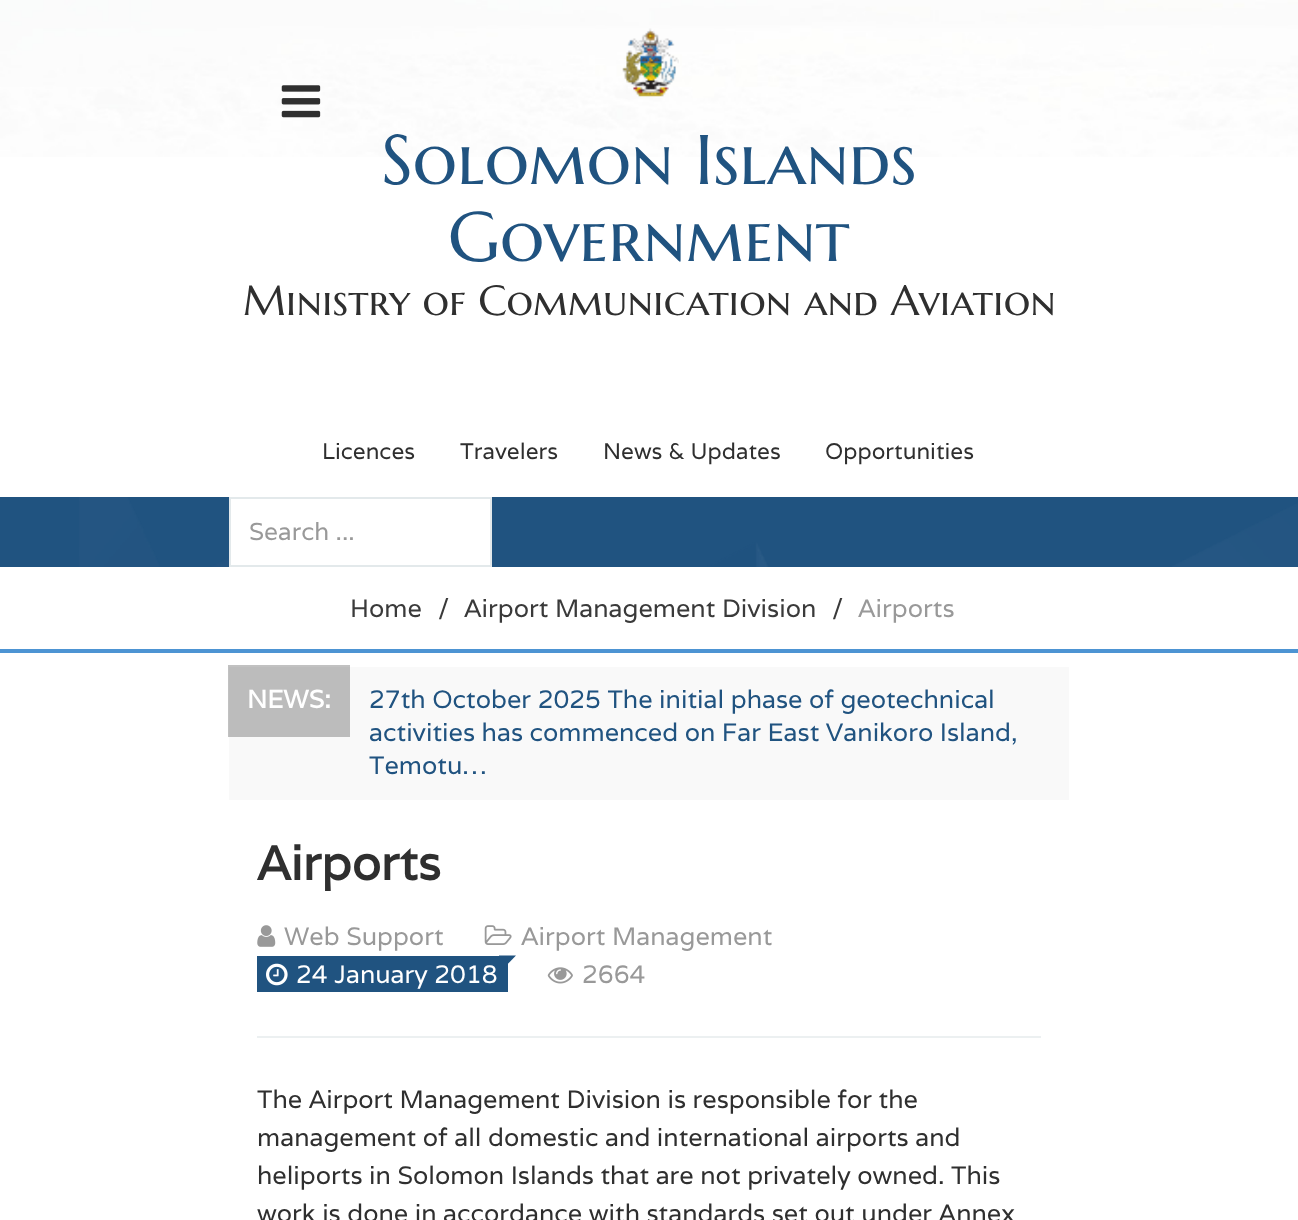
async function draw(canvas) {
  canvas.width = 1298
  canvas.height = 1220
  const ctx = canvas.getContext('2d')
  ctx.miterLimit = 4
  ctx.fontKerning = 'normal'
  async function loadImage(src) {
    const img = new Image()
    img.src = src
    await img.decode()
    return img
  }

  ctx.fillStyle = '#fff'
  ctx.fillRect(0, 0, 1298, 1220)
  ctx.fillStyle = '#c1c1c1'
  ctx.fillRect(228, 665, 122, 72)
  ctx.drawImage(await loadImage('image0.png'), 0, 0, 1298, 157)
  ctx.drawImage(await loadImage('image1.png'), 281, 85, 40, 33)
  ctx.drawImage(await loadImage('image2.png'), 622, 28, 57, 69)
  ctx.font = '70px Marcellus SC'
  ctx.fillStyle = '#205380'
  ctx.fillText('Solomon Islands', 381, 184)
  ctx.fillText('Government', 448, 261)
  ctx.font = '42px Marcellus SC'
  ctx.fillStyle = '#2f2f2f'
  ctx.fillText('Ministry of Communication and Aviation', 243, 315)
  ctx.font = '22.5px Varela'
  ctx.fillText('Licences', 322, 459)
  ctx.fillText('Travelers', 460, 459)
  ctx.fillText('News & Updates', 603, 459)
  ctx.fillText('Opportunities', 825, 459)
  ctx.fillStyle = '#205380'
  ctx.fillRect(0, 497, 1298, 70)
  ctx.drawImage(await loadImage('image3.png'), 79, 497, 1219, 70)
  ctx.fillStyle = '#fff'
  ctx.beginPath()
  ctx.rect(230, 498, 261, 68)
  ctx.fill()
  ctx.strokeStyle = '#e3e9eb'
  ctx.lineWidth = 2
  ctx.stroke()
  ctx.font = '24.5px Varela'
  ctx.fillStyle = '#999'
  ctx.fillText('Search ...', 249, 540)
  ctx.fillStyle = '#4d94d3'
  ctx.fillRect(0, 649, 1298, 4)
  ctx.font = '25.2px Varela'
  ctx.fillStyle = '#3a3a3a'
  ctx.fillText('Home', 350, 617)
  ctx.fillText('/', 438, 617)
  ctx.fillText('Airport Management Division', 464, 617)
  ctx.fillText('/', 832, 617)
  ctx.fillStyle = '#999'
  ctx.fillText('Airports', 858, 617)
  ctx.fillStyle = '#f9f9f9'
  ctx.fillRect(229, 667, 840, 133)
  ctx.fillStyle = '#bcbcbc'
  ctx.fillRect(229, 667, 121, 70)
  ctx.font = 'bold 25.2px Varela'
  ctx.fillStyle = '#fff'
  ctx.fillText('NEWS:', 247, 708)
  ctx.font = '25.2px Varela'
  ctx.fillStyle = '#205380'
  ctx.fillText('27th October 2025 The initial phase of geotechnical', 369, 708)
  ctx.fillText('activities has commenced on Far East Vanikoro Island,', 369, 741)
  ctx.fillText('Temotu…', 369, 774)
  ctx.fillStyle = '#ecf0f1'
  ctx.fillRect(257, 1036, 784, 2)
  ctx.font = 'bold 48px Varela'
  ctx.fillStyle = '#2f2f2f'
  ctx.fillText('Airports', 257, 880)
  ctx.drawImage(await loadImage('image4.png'), 257, 925, 19, 22)
  ctx.font = '25.2px Varela'
  ctx.fillStyle = '#999'
  ctx.fillText('Web Support', 284, 945)
  ctx.drawImage(await loadImage('image5.png'), 484, 925, 28, 20)
  ctx.fillText('Airport Management', 521, 945)
  ctx.fillStyle = '#205380'
  ctx.fillRect(257, 956, 251, 36)
  ctx.drawImage(await loadImage('image6.png'), 266, 963, 22, 23)
  ctx.fillStyle = '#fff'
  ctx.fillText('24 January 2018', 296, 983)
  ctx.fillStyle = '#205380'
  ctx.beginPath()
  ctx.moveTo(499, 955.5)
  ctx.lineTo(516, 955.5)
  ctx.lineTo(499, 973)
  ctx.closePath()
  ctx.fill()
  ctx.drawImage(await loadImage('image7.png'), 547, 967, 26, 17)
  ctx.fillStyle = '#999'
  ctx.fillText('2664', 582, 983)
  ctx.fillStyle = '#2f2f2f'
  ctx.fillText('The Airport Management Division is responsible for the', 257, 1108)
  ctx.fillText('management of all domestic and international airports and', 257, 1146)
  ctx.fillText('heliports in Solomon Islands that are not privately owned. This', 257, 1184)
  ctx.fillText('work is done in accordance with standards set out under Annex', 257, 1222)
}

draw(document.querySelector('canvas'))
